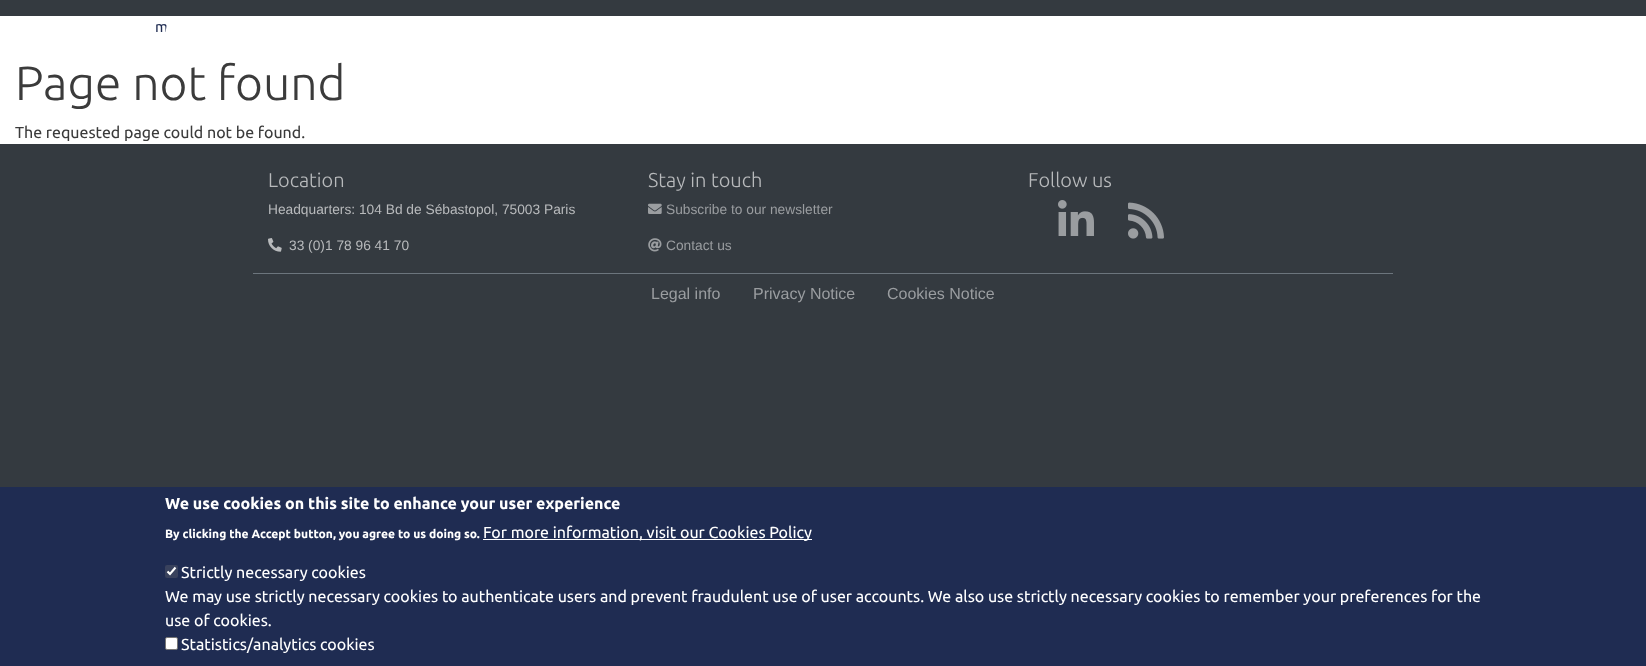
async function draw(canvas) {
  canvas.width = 1646
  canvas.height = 666
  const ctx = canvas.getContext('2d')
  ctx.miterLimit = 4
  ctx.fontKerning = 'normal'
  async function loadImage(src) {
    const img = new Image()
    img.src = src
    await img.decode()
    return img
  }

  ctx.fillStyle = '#343a40'
  ctx.fillRect(0, 0, 1646, 666)
  ctx.fillStyle = '#fff'
  ctx.fillRect(0, 16, 1646, 128)
  ctx.font = '15px Ubuntu'
  ctx.fillStyle = '#1f2c52'
  ctx.fillText('m', 155, 32)
  ctx.drawImage(await loadImage('image0.png'), 16, 22, 158, 12)
  ctx.font = '300 48px Ubuntu'
  ctx.fillStyle = '#3b3b3b'
  ctx.fillText('Page not found', 15, 100)
  ctx.font = '16px Ubuntu'
  ctx.fillText('The requested page could not be found.', 15, 138)
  ctx.font = '300 20px Ubuntu'
  ctx.fillStyle = '#b8babc'
  ctx.fillText('Location', 268, 187)
  ctx.font = '13.75px Liberation Sans'
  ctx.fillText('Headquarters: 104 Bd de Sébastopol, 75003 Paris', 268, 214)
  ctx.drawImage(await loadImage('image1.png'), 268, 238, 14, 14)
  ctx.fillText('33 (0)1 78 96 41 70', 289, 250)
  ctx.font = '300 20px Ubuntu'
  ctx.fillText('Stay in touch', 648, 187)
  ctx.drawImage(await loadImage('image2.png'), 648, 203, 14, 11)
  ctx.font = '13.75px Liberation Sans'
  ctx.fillStyle = '#9a9da0'
  ctx.fillText('Subscribe to our newsletter', 666, 214)
  ctx.drawImage(await loadImage('image3.png'), 648, 238, 14, 14)
  ctx.fillText('Contact us', 666, 250)
  ctx.font = '300 20px Ubuntu'
  ctx.fillStyle = '#b8babc'
  ctx.fillText('Follow us', 1028, 187)
  ctx.drawImage(await loadImage('image4.png'), 1058, 200, 36, 36)
  ctx.drawImage(await loadImage('image5.png'), 1128, 202, 36, 37)
  ctx.fillStyle = '#6c757d'
  ctx.fillRect(253, 273, 1140, 1)
  ctx.font = '16px Liberation Sans'
  ctx.fillStyle = '#9a9da0'
  ctx.fillText('Legal info', 651, 299)
  ctx.fillText('Privacy Notice', 753, 299)
  ctx.fillText('Cookies Notice', 887, 299)
  ctx.fillStyle = '#1f2c52'
  ctx.fillRect(0, 487, 1646, 179)
  ctx.font = 'bold 16px Ubuntu'
  ctx.fillStyle = '#fff'
  ctx.fillText('We use cookies on this site to enhance your user experience', 165, 509)
  ctx.font = 'bold 12px Ubuntu'
  ctx.fillText('By clicking the Accept button, you agree to us doing so.', 165, 538)
  ctx.fillRect(483, 539, 329, 1)
  ctx.font = '16px Ubuntu'
  ctx.fillText('For more information, visit our Cookies Policy', 483, 538)
  ctx.fillStyle = '#39425d'
  ctx.beginPath()
  ctx.roundRect(165, 565, 13, 13, 2)
  ctx.fill()
  ctx.beginPath()
  ctx.moveTo(167.5, 571.5)
  ctx.lineTo(170, 574)
  ctx.lineTo(175.5, 567.5)
  ctx.strokeStyle = '#fff'
  ctx.lineWidth = 2.1
  ctx.stroke()
  ctx.fillStyle = '#fff'
  ctx.fillText('Strictly necessary cookies', 181, 578)
  ctx.fillText('We may use strictly necessary cookies to authenticate users and prevent fraudulent use of user accounts. We also use strictly necessary cookies to remember your preferences for the', 165, 602)
  ctx.fillText('use of cookies.', 165, 626)
  ctx.beginPath()
  ctx.roundRect(165.5, 637.5, 12, 12, 1.5)
  ctx.fill()
  ctx.strokeStyle = '#767676'
  ctx.lineWidth = 1
  ctx.stroke()
  ctx.fillText('Statistics/analytics cookies', 181, 650)
}

draw(document.querySelector('canvas'))
